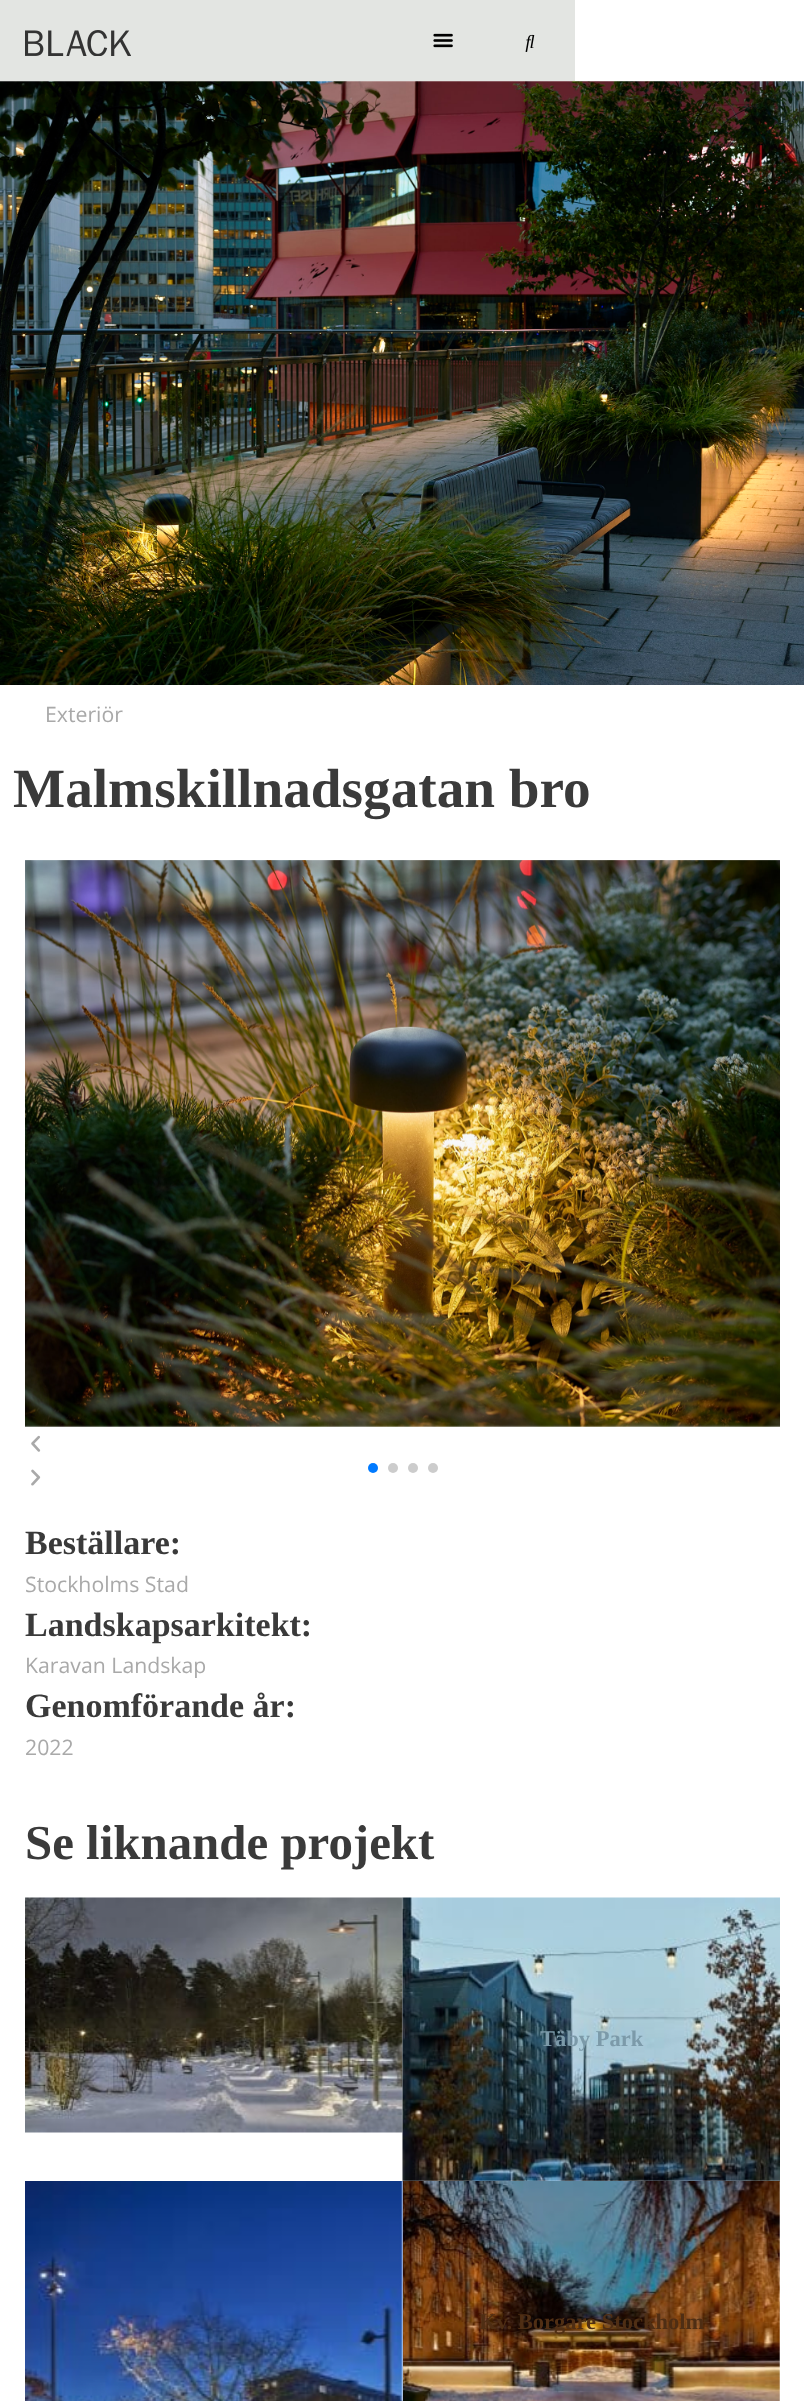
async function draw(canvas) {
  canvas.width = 804
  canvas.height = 2401
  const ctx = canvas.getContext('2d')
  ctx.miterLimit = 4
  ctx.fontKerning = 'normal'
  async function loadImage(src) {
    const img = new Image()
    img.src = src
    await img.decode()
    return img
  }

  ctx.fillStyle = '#fff'
  ctx.fillRect(0, 0, 804, 2401)
  ctx.fillStyle = '#e3e5e2'
  ctx.fillRect(0, 0, 575, 81)
  ctx.drawImage(await loadImage('image0.png'), 25, 30, 106, 26)
  ctx.drawImage(await loadImage('image1.png'), 433, 33, 20, 15)
  ctx.drawImage(await loadImage('image2.png'), 525, 34, 10, 18)
  ctx.drawImage(await loadImage('image3.png'), 0, 81, 804, 604)
  ctx.font = '21.25px Open Sans'
  ctx.fillStyle = '#a9a9a9'
  ctx.fillText('Exteriör', 45, 722)
  ctx.font = 'bold 55.25px Liberation Serif'
  ctx.fillStyle = '#3a3a3a'
  ctx.fillText('Malmskillnadsgatan bro', 13, 807)
  ctx.drawImage(await loadImage('image4.png'), 25, 860, 755, 567)
  ctx.drawImage(await loadImage('image5.png'), 31, 1435, 10, 17)
  ctx.fillStyle = '#007aff'
  ctx.beginPath()
  ctx.arc(373, 1468, 5, 0, 2 * Math.PI)
  ctx.fill()
  ctx.fillStyle = '#ccc'
  ctx.beginPath()
  ctx.arc(393, 1468, 5, 0, 2 * Math.PI)
  ctx.fill()
  ctx.beginPath()
  ctx.arc(413, 1468, 5, 0, 2 * Math.PI)
  ctx.fill()
  ctx.beginPath()
  ctx.arc(433, 1468, 5, 0, 2 * Math.PI)
  ctx.fill()
  ctx.drawImage(await loadImage('image6.png'), 31, 1469, 10, 17)
  ctx.font = 'bold 34px Liberation Serif'
  ctx.fillStyle = '#3a3a3a'
  ctx.fillText('Beställare:', 25, 1554)
  ctx.font = '21.25px Open Sans'
  ctx.fillStyle = '#a9a9a9'
  ctx.fillText('Stockholms Stad', 25, 1592)
  ctx.font = 'bold 34px Liberation Serif'
  ctx.fillStyle = '#3a3a3a'
  ctx.fillText('Landskapsarkitekt:', 25, 1636)
  ctx.font = '21.25px Open Sans'
  ctx.fillStyle = '#a9a9a9'
  ctx.fillText('Karavan Landskap', 25, 1673)
  ctx.font = 'bold 34px Liberation Serif'
  ctx.fillStyle = '#3a3a3a'
  ctx.fillText('Genomförande år:', 25, 1717)
  ctx.font = '21.25px Open Sans'
  ctx.fillStyle = '#a9a9a9'
  ctx.fillText('2022', 25, 1755)
  ctx.font = 'bold 48.9px Liberation Serif'
  ctx.fillStyle = '#3a3a3a'
  ctx.fillText('Se liknande projekt', 25, 1859)
  ctx.drawImage(await loadImage('image7.png'), 25, 1897, 378, 236)
  ctx.drawImage(await loadImage('image8.png'), 402, 1897, 378, 285)
  ctx.font = 'bold 22.5px Liberation Serif'
  ctx.fillStyle = '#7c9aa9'
  ctx.fillText('Täby Park', 540, 2046)
  ctx.drawImage(await loadImage('image9.png'), 25, 2181, 378, 220)
  ctx.drawImage(await loadImage('image10.png'), 403, 2181, 377, 220)
  ctx.fillStyle = '#4f2e14'
  ctx.fillText('Kv. Borgare Stockholm', 479, 2329)
}

draw(document.querySelector('canvas'))
